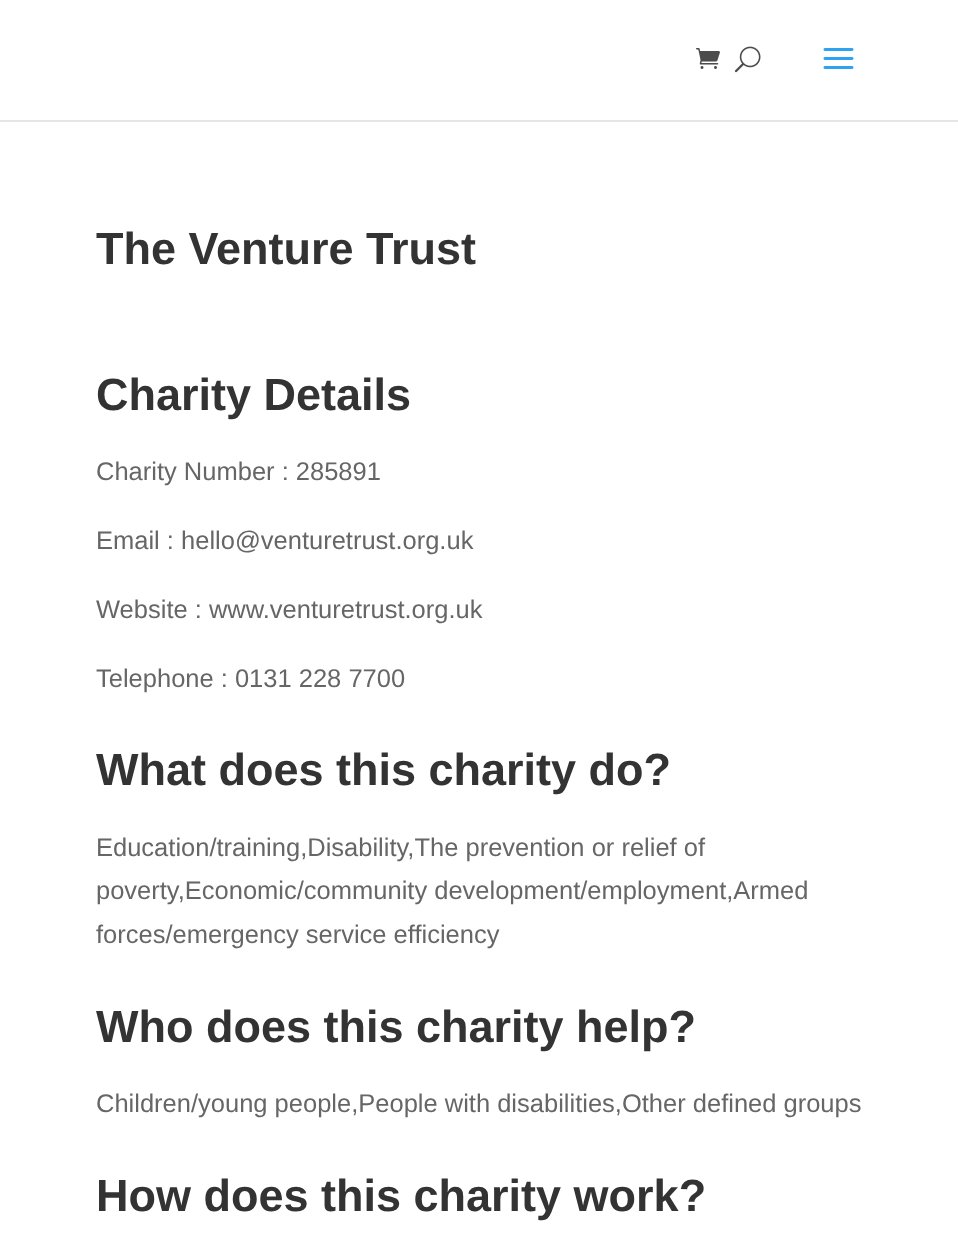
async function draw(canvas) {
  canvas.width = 958
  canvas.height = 1255
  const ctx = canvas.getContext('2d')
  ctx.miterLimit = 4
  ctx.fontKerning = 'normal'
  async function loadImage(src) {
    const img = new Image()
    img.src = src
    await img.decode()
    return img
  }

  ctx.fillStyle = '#fff'
  ctx.fillRect(0, 0, 958, 1255)
  ctx.fillStyle = '#e6e6e6'
  ctx.beginPath()
  ctx.moveTo(0, 120)
  ctx.lineTo(0, 122)
  ctx.lineTo(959, 122)
  ctx.lineTo(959, 2)
  ctx.lineTo(958, 2)
  ctx.lineTo(958, 120)
  ctx.closePath()
  ctx.fill()
  ctx.drawImage(await loadImage('image0.png'), 696, 48, 24, 21)
  ctx.drawImage(await loadImage('image1.png'), 734, 46, 27, 27)
  ctx.drawImage(await loadImage('image2.png'), 823, 48, 31, 21)
  ctx.font = 'bold 45px Liberation Sans'
  ctx.fillStyle = '#333'
  ctx.fillText('The Venture Trust', 96, 264)
  ctx.fillText('Charity Details', 96, 410)
  ctx.font = '25.5px Liberation Sans'
  ctx.fillStyle = '#666'
  ctx.fillText('Charity Number : 285891', 96, 480)
  ctx.fillText('Email : hello@venturetrust.org.uk', 96, 549)
  ctx.fillText('Website : www.venturetrust.org.uk', 96, 618)
  ctx.fillText('Telephone : 0131 228 7700', 96, 687)
  ctx.font = 'bold 45px Liberation Sans'
  ctx.fillStyle = '#333'
  ctx.fillText('What does this charity do?', 96, 785)
  ctx.font = '25.5px Liberation Sans'
  ctx.fillStyle = '#666'
  ctx.fillText('Education/training,Disability,The prevention or relief of', 96, 856)
  ctx.fillText('poverty,Economic/community development/employment,Armed', 96, 899)
  ctx.fillText('forces/emergency service efficiency', 96, 943)
  ctx.font = 'bold 45px Liberation Sans'
  ctx.fillStyle = '#333'
  ctx.fillText('Who does this charity help?', 96, 1042)
  ctx.font = '25.5px Liberation Sans'
  ctx.fillStyle = '#666'
  ctx.fillText('Children/young people,People with disabilities,Other defined groups', 96, 1112)
  ctx.font = 'bold 45px Liberation Sans'
  ctx.fillStyle = '#333'
  ctx.fillText('How does this charity work?', 96, 1211)
}

draw(document.querySelector('canvas'))
